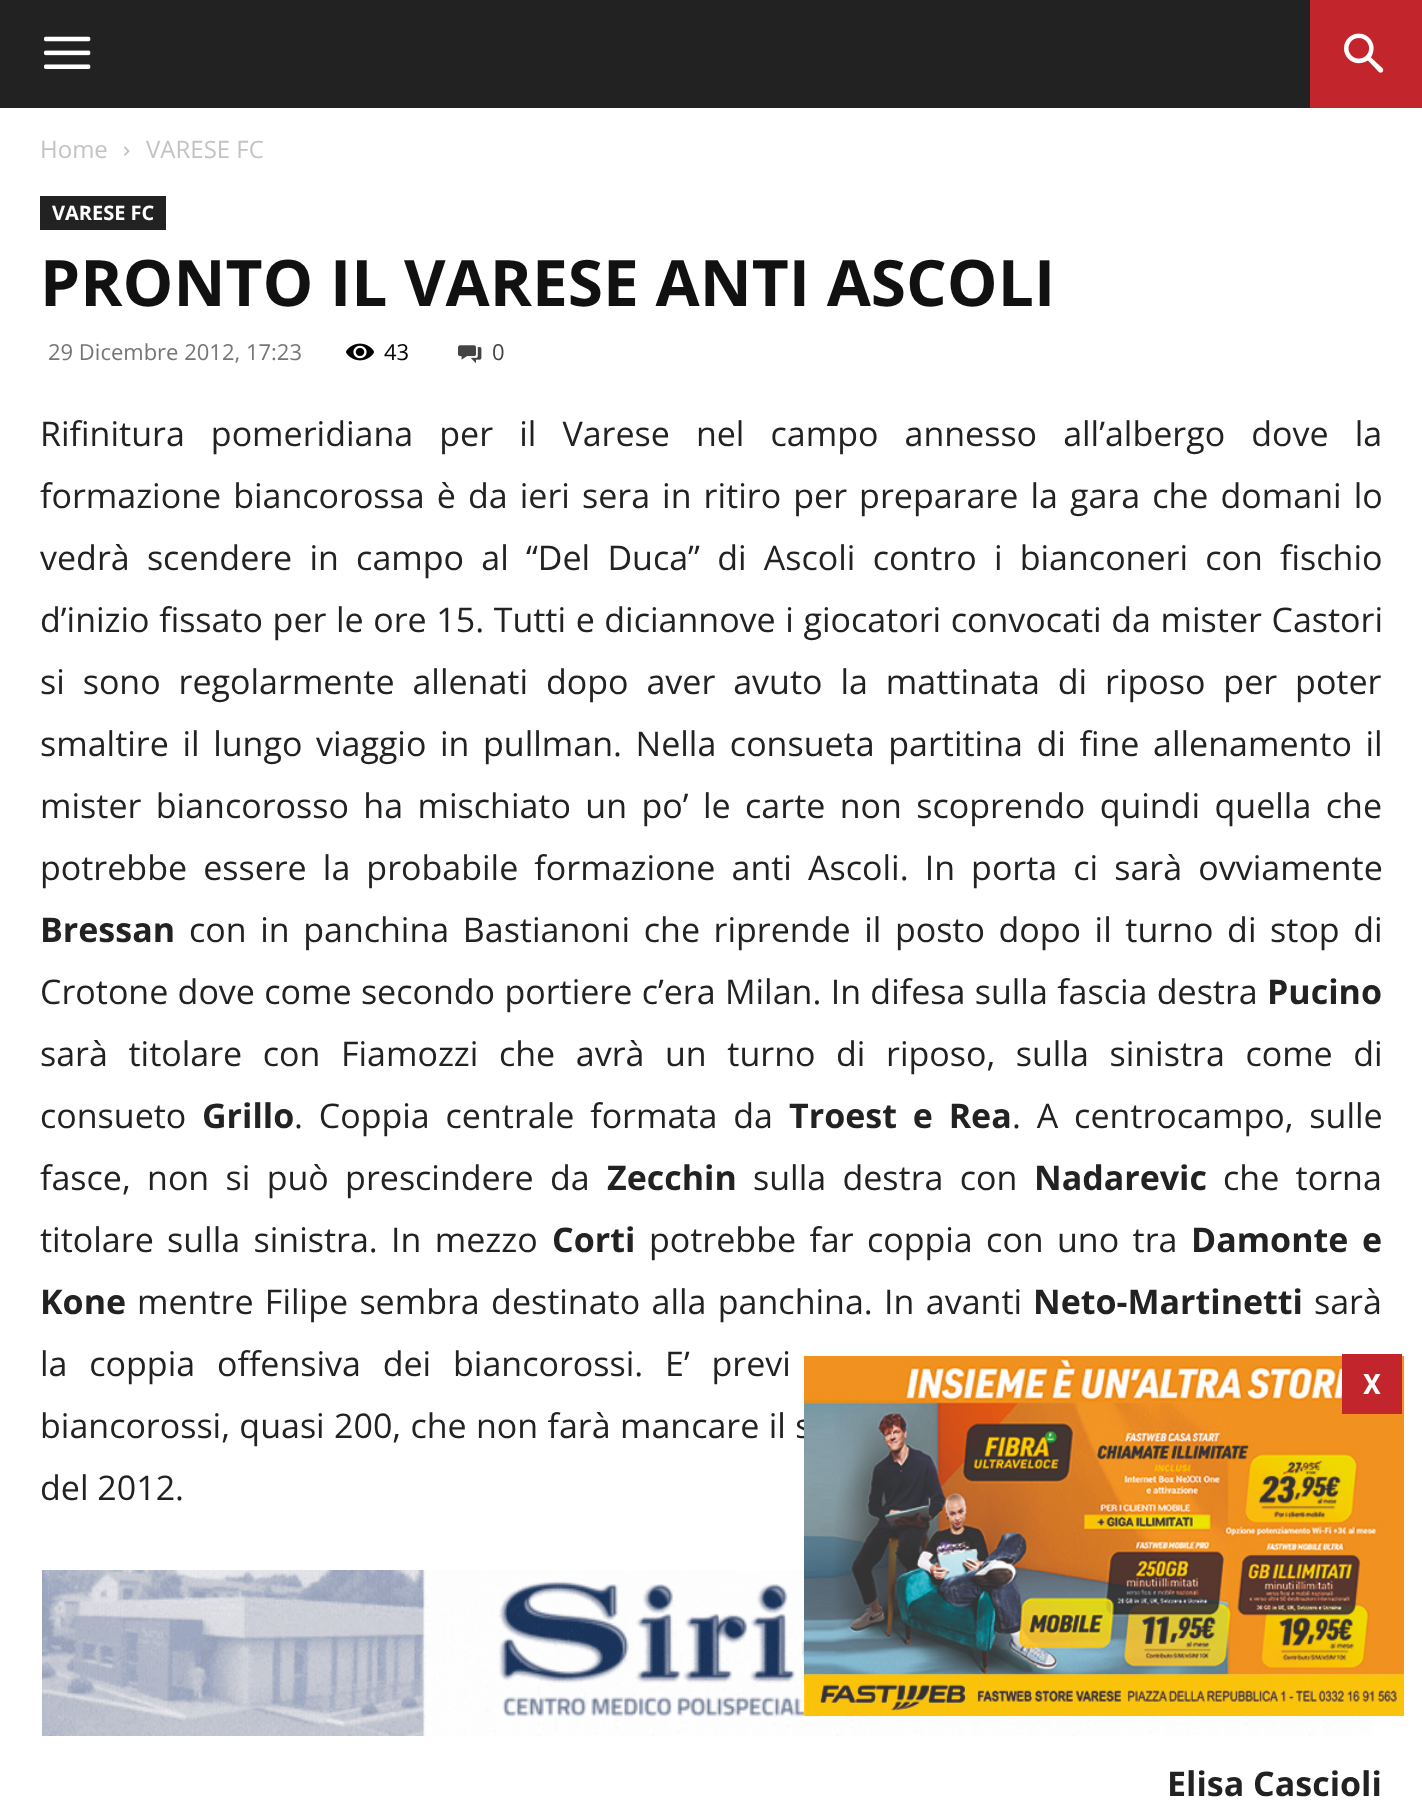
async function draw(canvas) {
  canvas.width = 1422
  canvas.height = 1803
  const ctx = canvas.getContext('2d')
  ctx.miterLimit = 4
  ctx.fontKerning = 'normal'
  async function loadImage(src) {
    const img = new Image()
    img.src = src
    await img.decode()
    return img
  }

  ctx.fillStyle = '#fff'
  ctx.fillRect(0, 0, 1422, 1803)
  ctx.fillStyle = '#222'
  ctx.fillRect(0, 0, 1310, 108)
  ctx.drawImage(await loadImage('image0.png'), 44, 36, 47, 33)
  ctx.fillStyle = '#c2252b'
  ctx.fillRect(1310, 0, 112, 108)
  ctx.drawImage(await loadImage('image1.png'), 1344, 33, 40, 40)
  ctx.font = '24px Open Sans'
  ctx.fillStyle = '#c3c3c3'
  ctx.fillText('Home', 40, 158)
  ctx.drawImage(await loadImage('image2.png'), 124, 146, 6, 10)
  ctx.fillText('VARESE FC', 146, 158)
  ctx.fillStyle = '#222'
  ctx.fillRect(40, 196, 126, 34)
  ctx.font = 'bold 20px Open Sans'
  ctx.fillStyle = '#fff'
  ctx.fillText('VARESE FC', 52, 220)
  ctx.font = 'bold 64px Open Sans'
  ctx.fillStyle = '#111'
  ctx.fillText('PRONTO IL VARESE ANTI ASCOLI', 40, 306)
  ctx.font = '22px Open Sans'
  ctx.fillStyle = '#767676'
  ctx.fillText('29 Dicembre 2012, 17:23', 48, 360)
  ctx.drawImage(await loadImage('image3.png'), 346, 343, 28, 18)
  ctx.fillStyle = '#000'
  ctx.fillText('43', 384, 360)
  ctx.drawImage(await loadImage('image4.png'), 458, 345, 24, 19)
  ctx.fillStyle = '#444'
  ctx.fillText('0', 492, 360)
  ctx.wordSpacing = '17.25px'
  ctx.font = '34px Open Sans'
  ctx.fillStyle = '#222'
  ctx.fillText('Rifinitura pomeridiana per il Varese nel campo annesso all’albergo dove la', 40, 446)
  ctx.wordSpacing = '3.25px'
  ctx.fillText('formazione biancorossa è da ieri sera in ritiro per preparare la gara che domani lo', 40, 508)
  ctx.wordSpacing = '8.4px'
  ctx.fillText('vedrà scendere in campo al “Del Duca” di Ascoli contro i bianconeri con fischio', 40, 570)
  ctx.wordSpacing = '0.75px'
  ctx.fillText('d’inizio fissato per le ore 15. Tutti e diciannove i giocatori convocati da mister Castori', 40, 632)
  ctx.wordSpacing = '9.1px'
  ctx.fillText('si sono regolarmente allenati dopo aver avuto la mattinata di riposo per poter', 40, 694)
  ctx.wordSpacing = '4.75px'
  ctx.fillText('smaltire il lungo viaggio in pullman. Nella consueta partitina di fine allenamento il', 40, 756)
  ctx.wordSpacing = '5.6px'
  ctx.fillText('mister biancorosso ha mischiato un po’ le carte non scoprendo quindi quella che', 40, 818)
  ctx.wordSpacing = '7.25px'
  ctx.fillText('potrebbe essere la probabile formazione anti Ascoli. In porta ci sarà ovviamente', 40, 880)
  ctx.wordSpacing = '0px'
  ctx.font = 'bold 34px Open Sans'
  ctx.fillText('Bressan', 40, 942)
  ctx.wordSpacing = '4.75px'
  ctx.font = '34px Open Sans'
  ctx.fillText('con in panchina Bastianoni che riprende il posto dopo il turno di stop di', 189, 942)
  ctx.wordSpacing = '0.5px'
  ctx.fillText('Crotone dove come secondo portiere c’era Milan. In difesa sulla fascia destra', 40, 1004)
  ctx.wordSpacing = '0px'
  ctx.font = 'bold 34px Open Sans'
  ctx.fillText('Pucino', 1267, 1004)
  ctx.wordSpacing = '11.75px'
  ctx.font = '34px Open Sans'
  ctx.fillText('sarà titolare con Fiamozzi che avrà un turno di riposo, sulla sinistra come di', 40, 1066)
  ctx.wordSpacing = '0px'
  ctx.fillText('consueto', 40, 1128)
  ctx.font = 'bold 34px Open Sans'
  ctx.fillText('Grillo', 202, 1128)
  ctx.wordSpacing = '7px'
  ctx.font = '34px Open Sans'
  ctx.fillText('. Coppia centrale formata da', 294, 1128)
  ctx.font = 'bold 34px Open Sans'
  ctx.fillText('Troest e Rea', 789, 1128)
  ctx.font = '34px Open Sans'
  ctx.fillText('. A centrocampo, sulle', 1012, 1128)
  ctx.wordSpacing = '7.5px'
  ctx.fillText('fasce, non si può prescindere da', 40, 1190)
  ctx.wordSpacing = '0px'
  ctx.font = 'bold 34px Open Sans'
  ctx.fillText('Zecchin', 607, 1190)
  ctx.wordSpacing = '7.5px'
  ctx.font = '34px Open Sans'
  ctx.fillText('sulla destra con', 753, 1190)
  ctx.wordSpacing = '0px'
  ctx.font = 'bold 34px Open Sans'
  ctx.fillText('Nadarevic', 1034, 1190)
  ctx.wordSpacing = '7.5px'
  ctx.font = '34px Open Sans'
  ctx.fillText('che torna', 1223, 1190)
  ctx.wordSpacing = '4.5px'
  ctx.fillText('titolare sulla sinistra. In mezzo', 40, 1252)
  ctx.wordSpacing = '0px'
  ctx.font = 'bold 34px Open Sans'
  ctx.fillText('Corti', 552, 1252)
  ctx.wordSpacing = '4.5px'
  ctx.font = '34px Open Sans'
  ctx.fillText('potrebbe far coppia con uno tra', 649, 1252)
  ctx.wordSpacing = '4.75px'
  ctx.font = 'bold 34px Open Sans'
  ctx.fillText('Damonte e', 1191, 1252)
  ctx.wordSpacing = '0px'
  ctx.fillText('Kone', 40, 1314)
  ctx.wordSpacing = '2.5px'
  ctx.font = '34px Open Sans'
  ctx.fillText('mentre Filipe sembra destinato alla panchina. In avanti', 137, 1314)
  ctx.wordSpacing = '0px'
  ctx.font = 'bold 34px Open Sans'
  ctx.fillText('Neto-Martinetti', 1033, 1314)
  ctx.font = '34px Open Sans'
  ctx.fillText('sarà', 1314, 1314)
  ctx.wordSpacing = '13px'
  ctx.fillText('la coppia offensiva dei biancorossi. E’ previ', 40, 1376)
  ctx.wordSpacing = '0.5px'
  ctx.fillText('biancorossi, quasi 200, che non farà mancare il s', 40, 1438)
  ctx.wordSpacing = '0px'
  ctx.fillText('del 2012.', 40, 1500)
  ctx.drawImage(await loadImage('image5.png'), 42, 1570, 1329, 166)
  ctx.font = 'bold 34px Open Sans'
  ctx.fillText('Elisa Cascioli', 1167, 1796)
  ctx.drawImage(await loadImage('image6.png'), 804, 1356, 600, 360)
  ctx.fillStyle = '#c2252b'
  ctx.fillRect(1342, 1354, 60, 60)
  ctx.font = 'bold 28px Roboto'
  ctx.fillStyle = '#fff'
  ctx.fillText('X', 1363, 1394)
}

draw(document.querySelector('canvas'))
